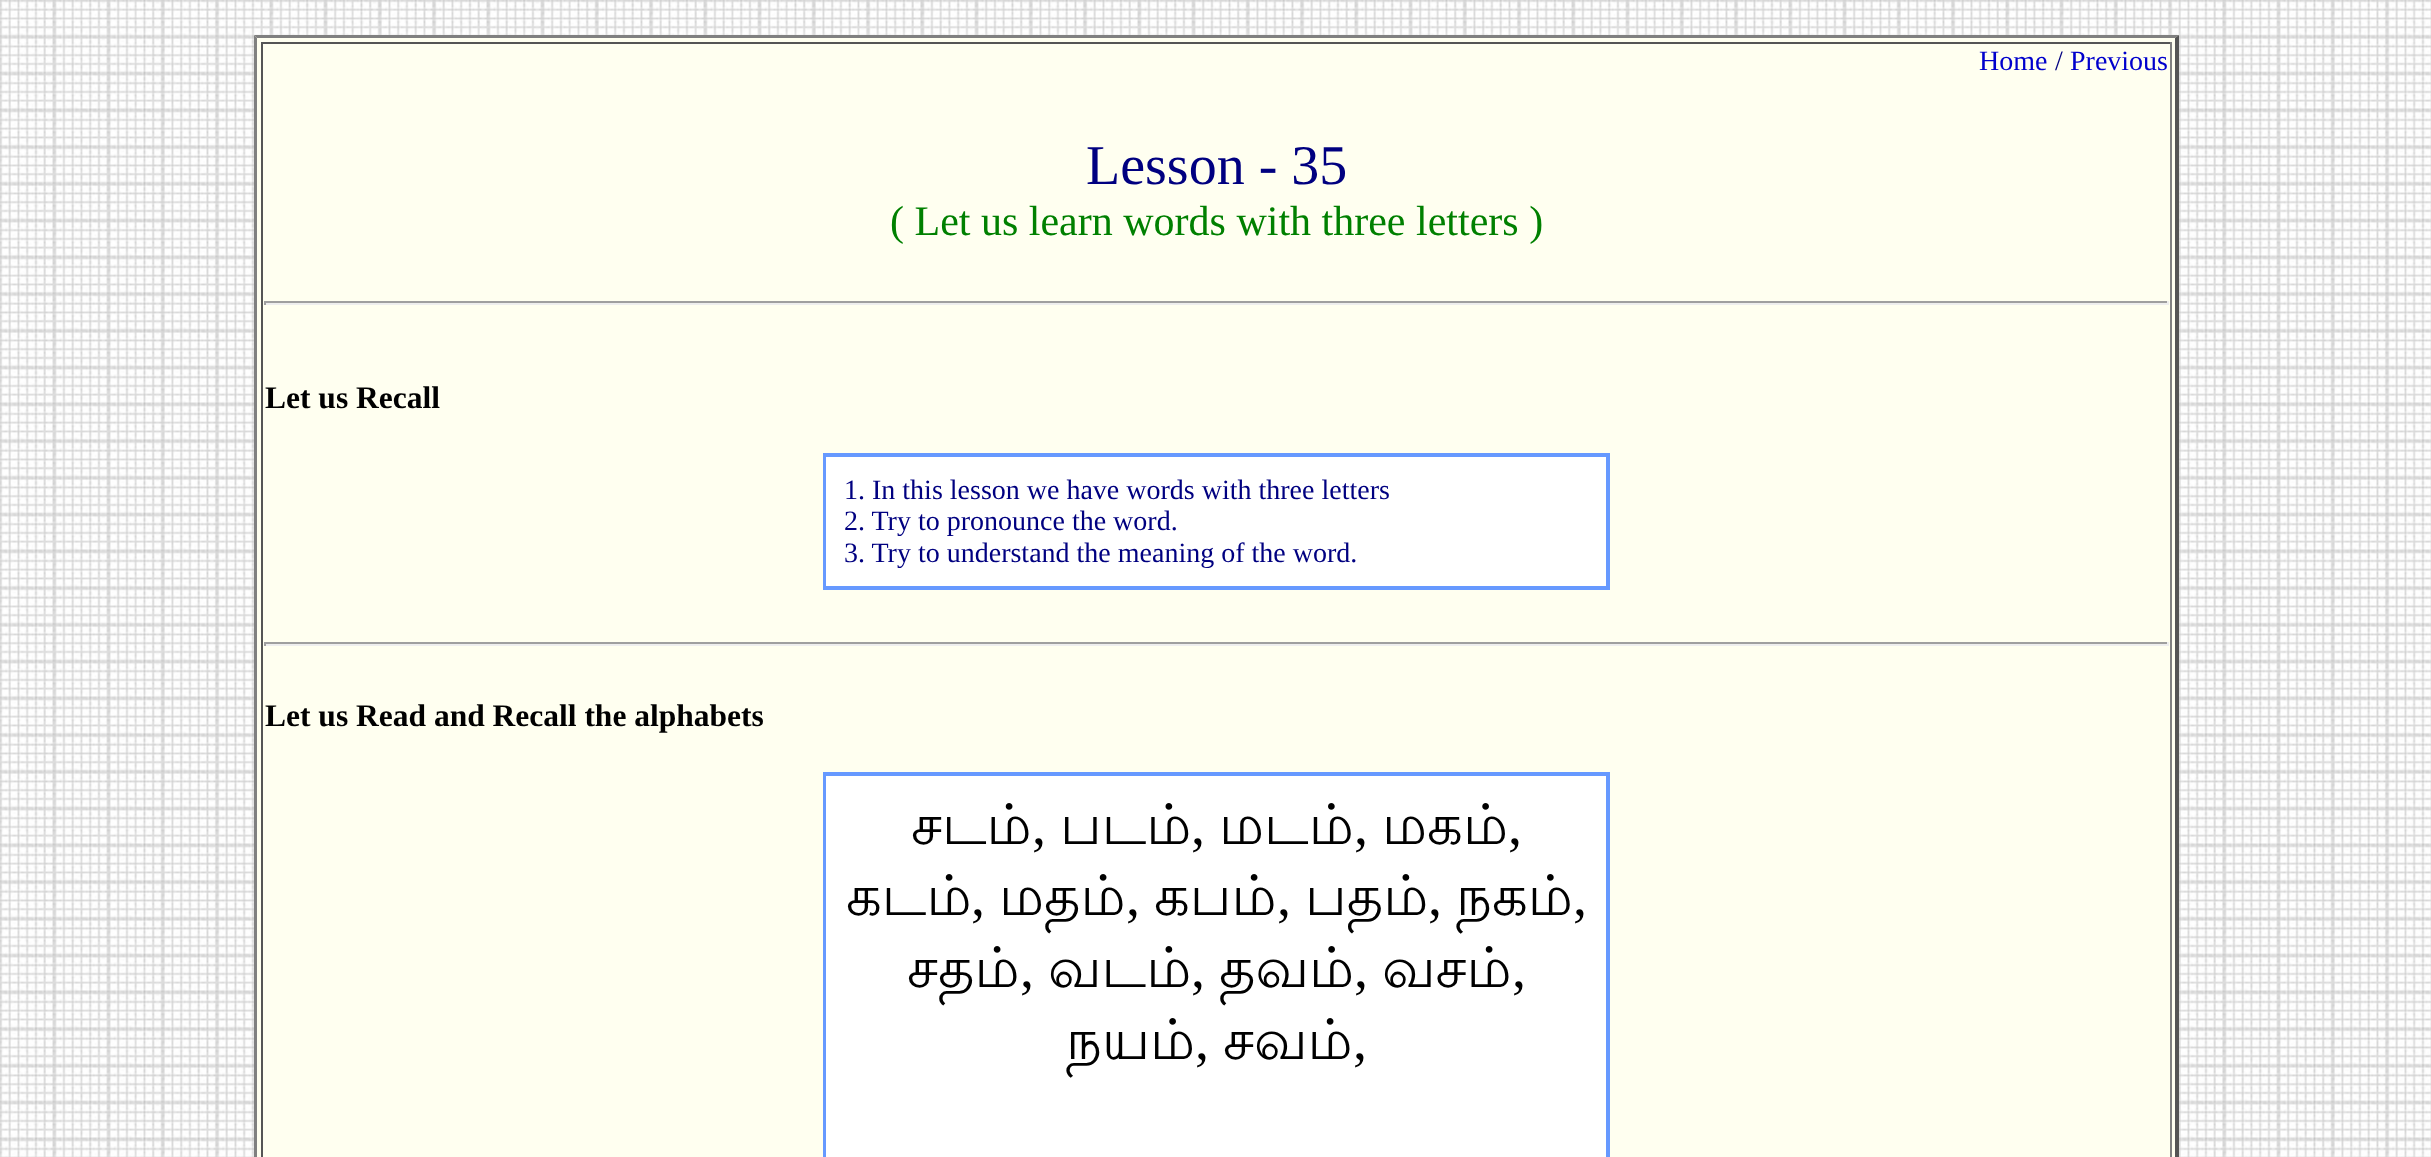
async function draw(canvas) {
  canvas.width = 2431
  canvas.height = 1157
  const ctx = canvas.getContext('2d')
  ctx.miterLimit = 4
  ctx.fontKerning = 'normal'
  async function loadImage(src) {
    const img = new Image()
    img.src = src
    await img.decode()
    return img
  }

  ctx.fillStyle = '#fff'
  ctx.fillRect(0, 0, 2431, 1157)
  ctx.drawImage(await loadImage('image0.png'), 0, 0, 2431, 1157)
  ctx.fillStyle = '#fffff0'
  ctx.fillRect(254, 35, 1925, 1122)
  ctx.fillStyle = '#808080'
  ctx.beginPath()
  ctx.moveTo(254, 35)
  ctx.lineTo(2179, 35)
  ctx.lineTo(2175, 38)
  ctx.lineTo(257, 38)
  ctx.closePath()
  ctx.fill()
  ctx.fillStyle = '#555'
  ctx.beginPath()
  ctx.moveTo(2179, 35)
  ctx.lineTo(2179, 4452)
  ctx.lineTo(2175, 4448)
  ctx.lineTo(2175, 38)
  ctx.closePath()
  ctx.fill()
  ctx.fillStyle = '#808080'
  ctx.beginPath()
  ctx.moveTo(254, 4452)
  ctx.lineTo(254, 35)
  ctx.lineTo(257, 38)
  ctx.lineTo(257, 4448)
  ctx.closePath()
  ctx.fill()
  ctx.fillStyle = '#555'
  ctx.fillRect(261, 42, 1911, 2)
  ctx.fillStyle = '#808080'
  ctx.fillRect(2170, 42, 2, 1115)
  ctx.fillStyle = '#555'
  ctx.fillRect(261, 42, 2, 1115)
  ctx.font = '28px Liberation Serif'
  ctx.fillStyle = '#00c'
  ctx.fillText('Home', 1979, 70)
  ctx.fillStyle = '#000080'
  ctx.fillText('/', 2055, 70)
  ctx.fillStyle = '#00c'
  ctx.fillText('Previous', 2070, 70)
  ctx.font = '56px Liberation Serif'
  ctx.fillStyle = '#000080'
  ctx.fillText('Lesson - 35', 1086, 184)
  ctx.font = '42px Liberation Serif'
  ctx.fillStyle = '#008000'
  ctx.fillText('( Let us learn words with three letters )', 890, 235)
  ctx.fillStyle = '#9f9f9f'
  ctx.fillRect(264, 301, 1904, 2)
  ctx.fillStyle = '#eee'
  ctx.fillRect(2167, 301, 2, 4)
  ctx.fillRect(264, 303, 1904, 2)
  ctx.fillStyle = '#9f9f9f'
  ctx.fillRect(264, 301, 2, 4)
  ctx.font = 'bold 31.5px Liberation Serif'
  ctx.fillStyle = '#000'
  ctx.fillText('Let us Recall', 265, 408)
  ctx.fillStyle = '#fff'
  ctx.fillRect(826, 457, 780, 129)
  ctx.strokeStyle = '#69f'
  ctx.lineWidth = 2
  ctx.strokeRect(824, 454, 785, 135)
  ctx.strokeRect(825, 456, 782, 131)
  ctx.font = '28px Liberation Serif'
  ctx.fillStyle = '#000080'
  ctx.fillText('1. In this lesson we have words with three letters', 844, 499)
  ctx.fillText('2. Try to pronounce the word.', 844, 530)
  ctx.fillText('3. Try to understand the meaning of the word.', 844, 562)
  ctx.fillStyle = '#9f9f9f'
  ctx.fillRect(264, 642, 1904, 2)
  ctx.fillStyle = '#eee'
  ctx.fillRect(2167, 642, 2, 4)
  ctx.fillRect(264, 644, 1904, 2)
  ctx.fillStyle = '#9f9f9f'
  ctx.fillRect(264, 642, 2, 4)
  ctx.font = 'bold 31.5px Liberation Serif'
  ctx.fillStyle = '#000'
  ctx.fillText('Let us Read and Recall the alphabets', 265, 726)
  ctx.fillStyle = '#fff'
  ctx.fillRect(826, 776, 780, 381)
  ctx.strokeRect(824, 773, 785, 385)
  ctx.strokeRect(825, 775, 782, 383)
  ctx.font = '56px Lohit Tamil'
  ctx.fillStyle = '#000'
  ctx.fillText('சடம்', 911, 844)
  ctx.font = '56px Liberation Serif'
  ctx.fillText(',', 1032, 844)
  ctx.font = '56px Lohit Tamil'
  ctx.fillText('படம்', 1060, 844)
  ctx.font = '56px Liberation Serif'
  ctx.fillText(',', 1191, 844)
  ctx.font = '56px Lohit Tamil'
  ctx.fillText('மடம்', 1219, 844)
  ctx.font = '56px Liberation Serif'
  ctx.fillText(',', 1354, 844)
  ctx.font = '56px Lohit Tamil'
  ctx.fillText('மகம்', 1382, 844)
  ctx.font = '56px Liberation Serif'
  ctx.fillText(',', 1508, 844)
  ctx.font = '56px Lohit Tamil'
  ctx.fillText('கடம்', 846, 915)
  ctx.font = '56px Liberation Serif'
  ctx.fillText(',', 971, 915)
  ctx.font = '56px Lohit Tamil'
  ctx.fillText('மதம்', 999, 915)
  ctx.font = '56px Liberation Serif'
  ctx.fillText(',', 1126, 915)
  ctx.font = '56px Lohit Tamil'
  ctx.fillText('கபம்', 1154, 915)
  ctx.font = '56px Liberation Serif'
  ctx.fillText(',', 1277, 915)
  ctx.font = '56px Lohit Tamil'
  ctx.fillText('பதம்', 1305, 915)
  ctx.font = '56px Liberation Serif'
  ctx.fillText(',', 1428, 915)
  ctx.font = '56px Lohit Tamil'
  ctx.fillText('நகம்', 1456, 915)
  ctx.font = '56px Liberation Serif'
  ctx.fillText(',', 1573, 915)
  ctx.font = '56px Lohit Tamil'
  ctx.fillText('சதம்', 907, 987)
  ctx.font = '56px Liberation Serif'
  ctx.fillText(',', 1020, 987)
  ctx.font = '56px Lohit Tamil'
  ctx.fillText('வடம்', 1048, 987)
  ctx.font = '56px Liberation Serif'
  ctx.fillText(',', 1191, 987)
  ctx.font = '56px Lohit Tamil'
  ctx.fillText('தவம்', 1219, 987)
  ctx.font = '56px Liberation Serif'
  ctx.fillText(',', 1354, 987)
  ctx.font = '56px Lohit Tamil'
  ctx.fillText('வசம்', 1382, 987)
  ctx.font = '56px Liberation Serif'
  ctx.fillText(',', 1512, 987)
  ctx.font = '56px Lohit Tamil'
  ctx.fillText('நயம்', 1066, 1059)
  ctx.font = '56px Liberation Serif'
  ctx.fillText(',', 1195, 1059)
  ctx.font = '56px Lohit Tamil'
  ctx.fillText('சவம்', 1223, 1059)
  ctx.font = '56px Liberation Serif'
  ctx.fillText(',', 1353, 1059)
}

draw(document.querySelector('canvas'))
